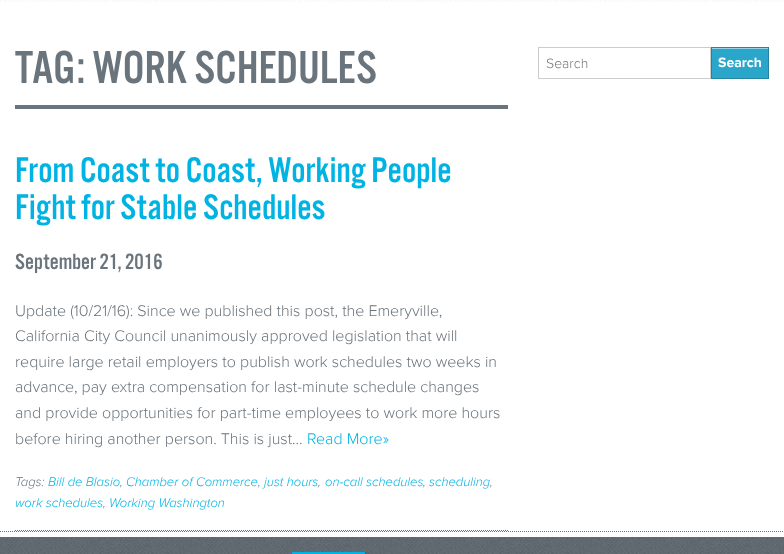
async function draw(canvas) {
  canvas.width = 784
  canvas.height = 554
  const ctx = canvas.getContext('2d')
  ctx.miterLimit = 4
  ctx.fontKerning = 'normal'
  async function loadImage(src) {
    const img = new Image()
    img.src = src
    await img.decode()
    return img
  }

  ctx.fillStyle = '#fff'
  ctx.fillRect(0, 0, 784, 554)
  ctx.drawImage(await loadImage('image0.png'), 0, 0, 784, 2)
  ctx.fillStyle = '#6a747c'
  ctx.fillRect(15, 105, 493, 4)
  ctx.font = '48px "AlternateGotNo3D"'
  ctx.fillText('TAG: WORK SCHEDULES', 15, 83)
  ctx.beginPath()
  ctx.moveTo(15, 530.5)
  ctx.lineTo(508, 530.5)
  ctx.strokeStyle = '#6a747c'
  ctx.setLineDash([1, 1])
  ctx.stroke()
  ctx.font = '37px "AlternateGotNo3D"'
  ctx.fillStyle = '#00b3e3'
  ctx.fillText('From Coast to Coast, Working People', 15, 182)
  ctx.fillText('Fight for Stable Schedules', 15, 219)
  ctx.font = '23px "AlternateGotNo3D"'
  ctx.fillStyle = '#6a747c'
  ctx.fillText('September 21, 2016', 15, 269)
  ctx.font = '300 16px Proxima Nova'
  ctx.fillText('Update (10/21/16): Since we published this post, the Emeryville,', 15, 316)
  ctx.fillText('California City Council unanimously approved legislation that will', 15, 341)
  ctx.fillText('require large retail employers to publish work schedules two weeks in', 15, 367)
  ctx.fillText('advance, pay extra compensation for last-minute schedule changes', 15, 392)
  ctx.fillText('and provide opportunities for part-time employees to work more hours', 15, 418)
  ctx.fillText('before hiring another person. This is just…', 15, 444)
  ctx.fillStyle = '#00b3e3'
  ctx.fillText('Read More»', 307, 444)
  ctx.font = 'italic 300 13px Proxima Nova'
  ctx.fillStyle = '#6a747c'
  ctx.fillText('Tags:', 15, 486)
  ctx.fillStyle = '#00b3e3'
  ctx.fillText('Bill de Blasio', 48, 486)
  ctx.fillStyle = '#6a747c'
  ctx.fillText(',', 120, 486)
  ctx.fillStyle = '#00b3e3'
  ctx.fillText('Chamber of Commerce', 126, 486)
  ctx.fillStyle = '#6a747c'
  ctx.fillText(',', 258, 486)
  ctx.fillStyle = '#00b3e3'
  ctx.fillText('just hours', 264, 486)
  ctx.fillStyle = '#6a747c'
  ctx.fillText(',', 318, 486)
  ctx.fillStyle = '#00b3e3'
  ctx.fillText('on-call schedules', 325, 486)
  ctx.fillStyle = '#6a747c'
  ctx.fillText(',', 423, 486)
  ctx.fillStyle = '#00b3e3'
  ctx.fillText('scheduling', 429, 486)
  ctx.fillStyle = '#6a747c'
  ctx.fillText(',', 490, 486)
  ctx.fillStyle = '#00b3e3'
  ctx.fillText('work schedules', 15, 507)
  ctx.fillStyle = '#6a747c'
  ctx.fillText(',', 103, 507)
  ctx.fillStyle = '#00b3e3'
  ctx.fillText('Working Washington', 109, 507)
  ctx.strokeStyle = '#ccc'
  ctx.setLineDash([])
  ctx.strokeRect(538.5, 47.5, 172, 31)
  ctx.font = '300 14px Proxima Nova'
  ctx.fillStyle = '#757575'
  ctx.fillText('Search', 546, 68)
  ctx.fillStyle = '#2ba6cb'
  ctx.fillRect(712, 49, 56, 29)
  ctx.fillStyle = '#95d3e5'
  ctx.fillRect(712, 48, 56, 1)
  ctx.strokeStyle = '#2284a1'
  ctx.strokeRect(711.5, 47.5, 57, 31)
  ctx.font = 'bold 14px Proxima Nova'
  ctx.fillStyle = '#fff'
  ctx.fillText('Search', 718, 67)
  ctx.beginPath()
  ctx.moveTo(0, 531.5)
  ctx.lineTo(784, 531.5)
  ctx.strokeStyle = '#6a747c'
  ctx.setLineDash([1, 1])
  ctx.stroke()
  ctx.drawImage(await loadImage('image1.png'), 0, 537, 784, 17)
  ctx.drawImage(await loadImage('image2.png'), 291, 552, 76, 2)
}

draw(document.querySelector('canvas'))
